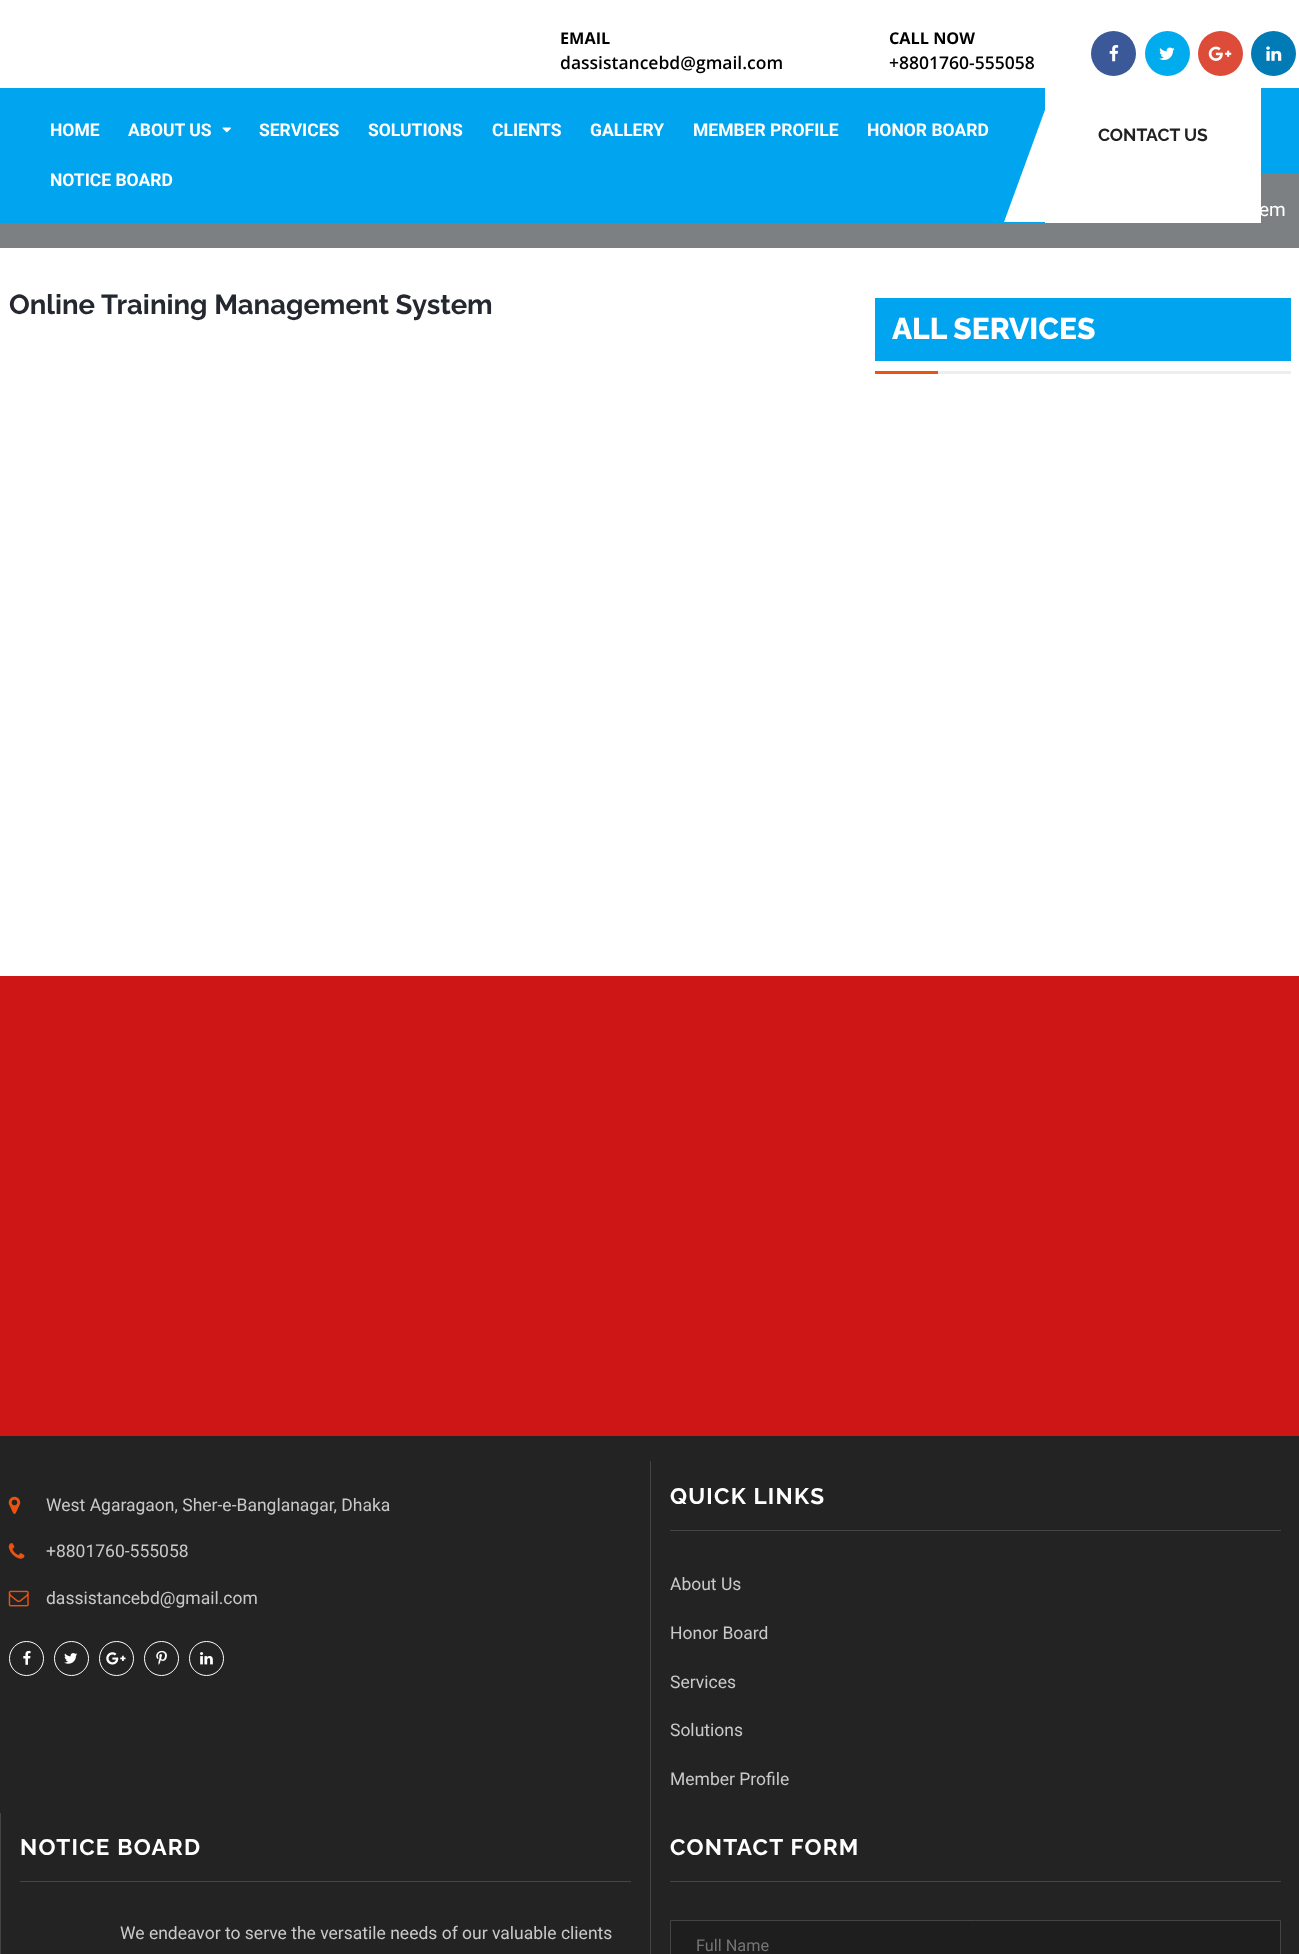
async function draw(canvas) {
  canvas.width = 1299
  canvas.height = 1954
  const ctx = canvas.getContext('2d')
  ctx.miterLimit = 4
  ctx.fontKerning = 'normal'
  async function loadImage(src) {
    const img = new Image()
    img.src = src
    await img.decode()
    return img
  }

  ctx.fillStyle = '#fff'
  ctx.fillRect(0, 0, 1299, 1954)
  ctx.font = 'bold 16.25px Open Sans'
  ctx.fillStyle = '#000'
  ctx.fillText('EMAIL', 560, 44)
  ctx.font = '600 17.5px Open Sans'
  ctx.fillText('dassistancebd@gmail.com', 560, 69)
  ctx.font = 'bold 16.25px Open Sans'
  ctx.fillText('CALL NOW', 889, 44)
  ctx.font = '600 17.5px Open Sans'
  ctx.fillText('+8801760-555058', 889, 69)
  ctx.fillStyle = '#3b5998'
  ctx.beginPath()
  ctx.arc(1113.5, 53.5, 22.5, 0, 2 * Math.PI)
  ctx.fill()
  ctx.drawImage(await loadImage('image0.png'), 1109, 45, 10, 17)
  ctx.fillStyle = '#00aced'
  ctx.beginPath()
  ctx.arc(1167.5, 53.5, 22.5, 0, 2 * Math.PI)
  ctx.fill()
  ctx.drawImage(await loadImage('image1.png'), 1159, 47, 16, 13)
  ctx.fillStyle = '#dd4b39'
  ctx.beginPath()
  ctx.arc(1220.5, 53.5, 22.5, 0, 2 * Math.PI)
  ctx.fill()
  ctx.drawImage(await loadImage('image2.png'), 1208, 46, 24, 15)
  ctx.fillStyle = '#007bb5'
  ctx.beginPath()
  ctx.arc(1273.5, 53.5, 22.5, 0, 2 * Math.PI)
  ctx.fill()
  ctx.drawImage(await loadImage('image3.png'), 1266, 46, 16, 15)
  ctx.fillStyle = '#00a4ef'
  ctx.fillRect(1261, 88, 38, 85)
  ctx.fillStyle = '#7d8082'
  ctx.fillRect(0, 173, 1299, 75)
  ctx.fillStyle = '#00a4ef'
  ctx.fillRect(0, 88, 1045, 135)
  ctx.font = 'bold 17.5px Roboto'
  ctx.fillStyle = '#fff'
  ctx.fillText('HOME', 50, 136)
  ctx.fillText('ABOUT US', 128, 136)
  ctx.drawImage(await loadImage('image4.png'), 222, 127, 9, 6)
  ctx.fillText('SERVICES', 259, 136)
  ctx.fillText('SOLUTIONS', 368, 136)
  ctx.fillText('CLIENTS', 492, 136)
  ctx.fillText('GALLERY', 590, 136)
  ctx.fillText('MEMBER PROFILE', 693, 136)
  ctx.fillText('HONOR BOARD', 867, 136)
  ctx.fillText('NOTICE BOARD', 50, 186)
  ctx.fillRect(1045, 173, 216, 50)
  ctx.font = 'bold 17.5px Raleway'
  ctx.fillStyle = '#212121'
  ctx.fillText('CONTACT US', 1098, 141)
  ctx.fillStyle = '#fff'
  ctx.beginPath()
  ctx.moveTo(1053, 88)
  ctx.lineTo(1103, 88)
  ctx.lineTo(1054, 222)
  ctx.lineTo(1004, 222)
  ctx.closePath()
  ctx.fill()
  ctx.font = '19px Roboto'
  ctx.fillText('em', 1259, 216)
  ctx.font = 'bold 27.5px Raleway'
  ctx.fillStyle = '#25292f'
  ctx.fillText('Online Training Management System', 9, 314)
  ctx.fillStyle = '#00a4ef'
  ctx.fillRect(875, 298, 416, 63)
  ctx.font = '800 30px Raleway'
  ctx.fillStyle = '#fff'
  ctx.fillText('ALL SERVICES', 892, 339)
  ctx.fillStyle = '#eb5310'
  ctx.fillRect(875, 371, 63, 3)
  ctx.fillStyle = '#eee'
  ctx.fillRect(938, 371, 353, 3)
  ctx.fillStyle = '#ce1616'
  ctx.fillRect(0, 976, 1299, 460)
  ctx.fillStyle = '#232323'
  ctx.fillRect(0, 1436, 1299, 518)
  ctx.drawImage(await loadImage('image5.png'), 8, 1496, 13, 18)
  ctx.font = '17.5px Roboto'
  ctx.fillStyle = '#c9c9c9'
  ctx.fillText('West Agaragaon, Sher-e-Banglanagar, Dhaka', 46, 1511)
  ctx.drawImage(await loadImage('image6.png'), 8, 1543, 17, 16)
  ctx.fillText('+8801760-555058', 46, 1557)
  ctx.drawImage(await loadImage('image7.png'), 8, 1590, 21, 17)
  ctx.fillText('dassistancebd@gmail.com', 46, 1604)
  ctx.beginPath()
  ctx.arc(26.5, 1658.5, 17, 0, 2 * Math.PI)
  ctx.strokeStyle = '#fff'
  ctx.stroke()
  ctx.drawImage(await loadImage('image8.png'), 23, 1650, 8, 15)
  ctx.beginPath()
  ctx.arc(71.5, 1658.5, 17, 0, 2 * Math.PI)
  ctx.stroke()
  ctx.drawImage(await loadImage('image9.png'), 64, 1653, 14, 11)
  ctx.beginPath()
  ctx.arc(116.5, 1658.5, 17, 0, 2 * Math.PI)
  ctx.stroke()
  ctx.drawImage(await loadImage('image10.png'), 106, 1652, 20, 13)
  ctx.beginPath()
  ctx.arc(161.5, 1658.5, 17, 0, 2 * Math.PI)
  ctx.stroke()
  ctx.drawImage(await loadImage('image11.png'), 156, 1650, 11, 15)
  ctx.beginPath()
  ctx.arc(206.5, 1658.5, 17, 0, 2 * Math.PI)
  ctx.stroke()
  ctx.drawImage(await loadImage('image12.png'), 200, 1652, 13, 13)
  ctx.fillStyle = '#444'
  ctx.fillRect(650, 1461, 1, 493)
  ctx.fillRect(670, 1530, 611, 1)
  ctx.letterSpacing = '1.25px'
  ctx.font = 'bold 22.5px Raleway'
  ctx.fillStyle = '#fff'
  ctx.fillText('QUICK LINKS', 670, 1504)
  ctx.letterSpacing = '0px'
  ctx.font = '17.5px Roboto'
  ctx.fillStyle = '#c9c9c9'
  ctx.fillText('About Us', 670, 1590)
  ctx.fillText('Honor Board', 670, 1639)
  ctx.fillText('Services', 670, 1688)
  ctx.fillText('Solutions', 670, 1736)
  ctx.fillText('Member Profile', 670, 1785)
  ctx.fillStyle = '#444'
  ctx.fillRect(0, 1813, 1, 141)
  ctx.fillRect(20, 1881, 611, 1)
  ctx.letterSpacing = '1.25px'
  ctx.font = 'bold 22.5px Raleway'
  ctx.fillStyle = '#fff'
  ctx.fillText('NOTICE BOARD', 20, 1855)
  ctx.letterSpacing = '0px'
  ctx.font = '17.5px Roboto'
  ctx.fillStyle = '#c9c9c9'
  ctx.fillText('We endeavor to serve the versatile needs of our valuable clients', 120, 1939)
  ctx.fillStyle = '#444'
  ctx.fillRect(670, 1881, 611, 1)
  ctx.letterSpacing = '1.25px'
  ctx.font = 'bold 22.5px Raleway'
  ctx.fillStyle = '#fff'
  ctx.fillText('CONTACT FORM', 670, 1855)
  ctx.fillStyle = '#1e1e1e'
  ctx.beginPath()
  ctx.rect(670.5, 1920.5, 610, 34)
  ctx.fill()
  ctx.strokeStyle = '#444'
  ctx.stroke()
  ctx.letterSpacing = '0px'
  ctx.font = '16.25px Roboto'
  ctx.fillStyle = '#757575'
  ctx.fillText('Full Name', 696, 1951)
}

draw(document.querySelector('canvas'))
